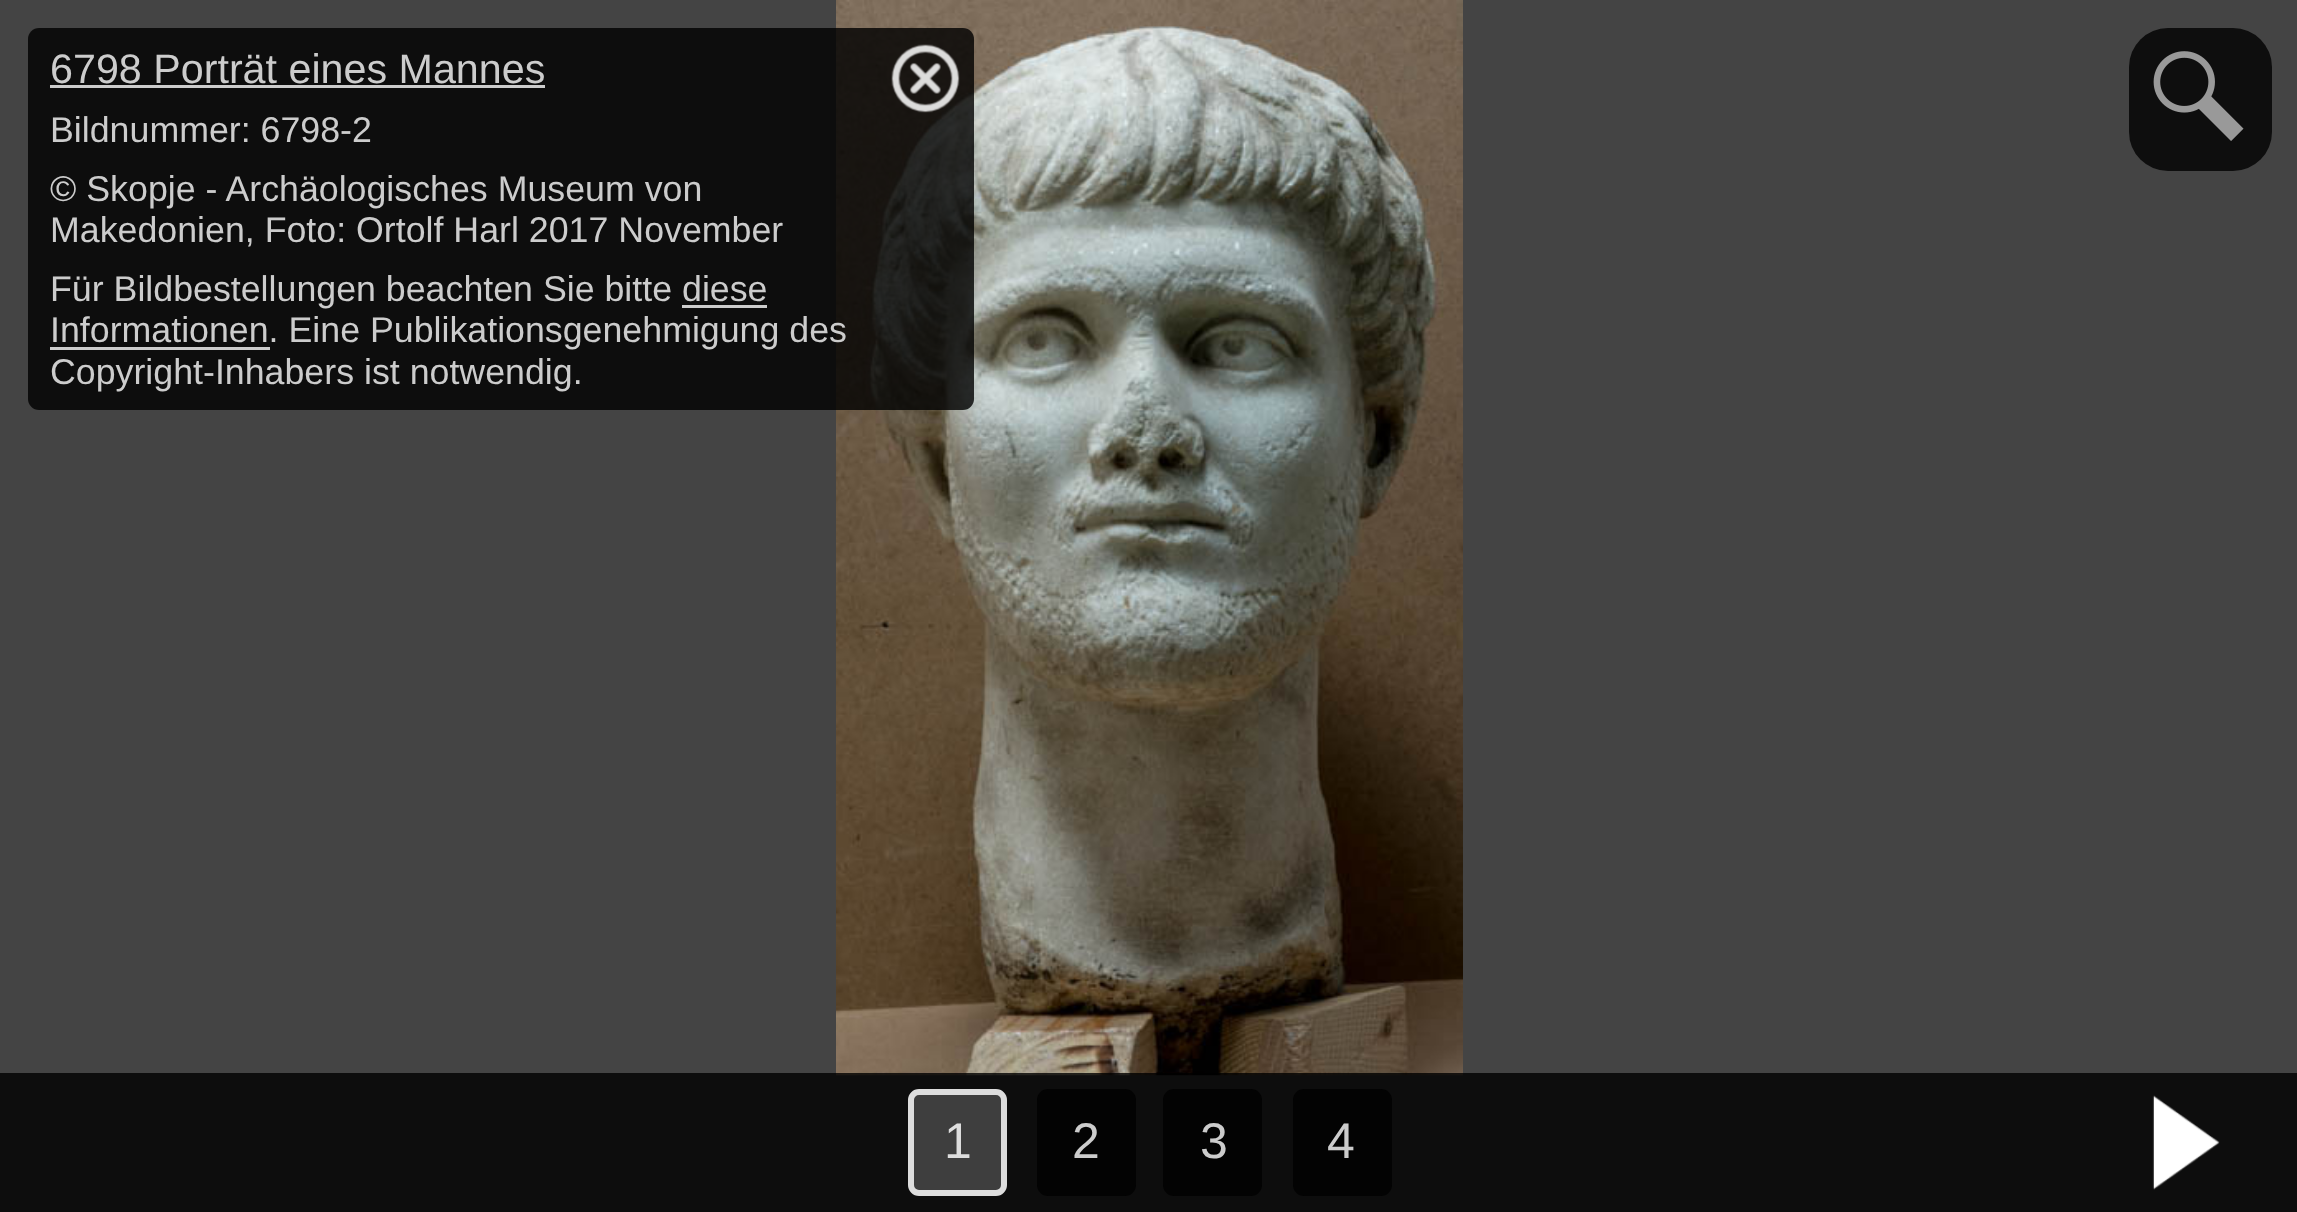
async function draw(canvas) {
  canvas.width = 2297
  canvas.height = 1212
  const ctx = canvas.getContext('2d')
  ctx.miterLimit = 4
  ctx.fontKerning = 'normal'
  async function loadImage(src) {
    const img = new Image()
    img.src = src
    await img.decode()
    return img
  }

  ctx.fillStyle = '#444'
  ctx.fillRect(0, 0, 2297, 1212)
  ctx.drawImage(await loadImage('image1.png'), 836, 0, 627, 1076)
  ctx.fillStyle = '#000000cc'
  ctx.beginPath()
  ctx.roundRect(28, 28, 946, 382, 11)
  ctx.fill()
  ctx.font = '41.25px Liberation Sans'
  ctx.fillStyle = '#ccc'
  ctx.fillText('6798 Porträt eines Mannes', 50, 83)
  ctx.fillRect(50, 85, 495, 3)
  ctx.drawImage(await loadImage('image0.png'), 891, 44, 69, 69)
  ctx.font = '35.75px Liberation Sans'
  ctx.fillText('Bildnummer: 6798-2', 50, 142)
  ctx.fillText('© Skopje - Archäologisches Museum von', 50, 201)
  ctx.fillText('Makedonien, Foto: Ortolf Harl 2017 November', 50, 242)
  ctx.fillText('Für Bildbestellungen beachten Sie bitte diese', 50, 301)
  ctx.fillRect(50, 347, 220, 3)
  ctx.fillText('Informationen. Eine Publikationsgenehmigung des', 50, 342)
  ctx.fillRect(682, 305, 85, 3)
  ctx.fillText('Copyright-Inhabers ist notwendig.', 50, 384)
  ctx.fillStyle = '#0e0e0e'
  ctx.beginPath()
  ctx.roundRect(2129, 28, 143, 143, 39)
  ctx.fill()
  ctx.drawImage(await loadImage('image2.png'), 2153, 51, 91, 90)
  ctx.fillStyle = '#000000cc'
  ctx.fillRect(0, 1073, 2297, 139)
  ctx.fillStyle = '#3e3e3e'
  ctx.beginPath()
  ctx.roundRect(911, 1092, 93, 101, 8)
  ctx.fill()
  ctx.strokeStyle = '#ddd'
  ctx.lineWidth = 6
  ctx.stroke()
  ctx.font = '50px Liberation Sans'
  ctx.fillStyle = '#ddd'
  ctx.fillText('1', 944, 1158)
  ctx.fillStyle = '#030303'
  ctx.beginPath()
  ctx.roundRect(1037, 1089, 99, 107, 11)
  ctx.fill()
  ctx.fillStyle = '#ccc'
  ctx.fillText('2', 1072, 1158)
  ctx.fillStyle = '#030303'
  ctx.beginPath()
  ctx.roundRect(1163, 1089, 99, 107, 11)
  ctx.fill()
  ctx.fillStyle = '#ccc'
  ctx.fillText('3', 1200, 1158)
  ctx.fillStyle = '#030303'
  ctx.beginPath()
  ctx.roundRect(1293, 1089, 99, 107, 11)
  ctx.fill()
  ctx.fillStyle = '#ccc'
  ctx.fillText('4', 1327, 1158)
  ctx.drawImage(await loadImage('image3.png'), 2152, 1095, 68, 95)
}

draw(document.querySelector('canvas'))
